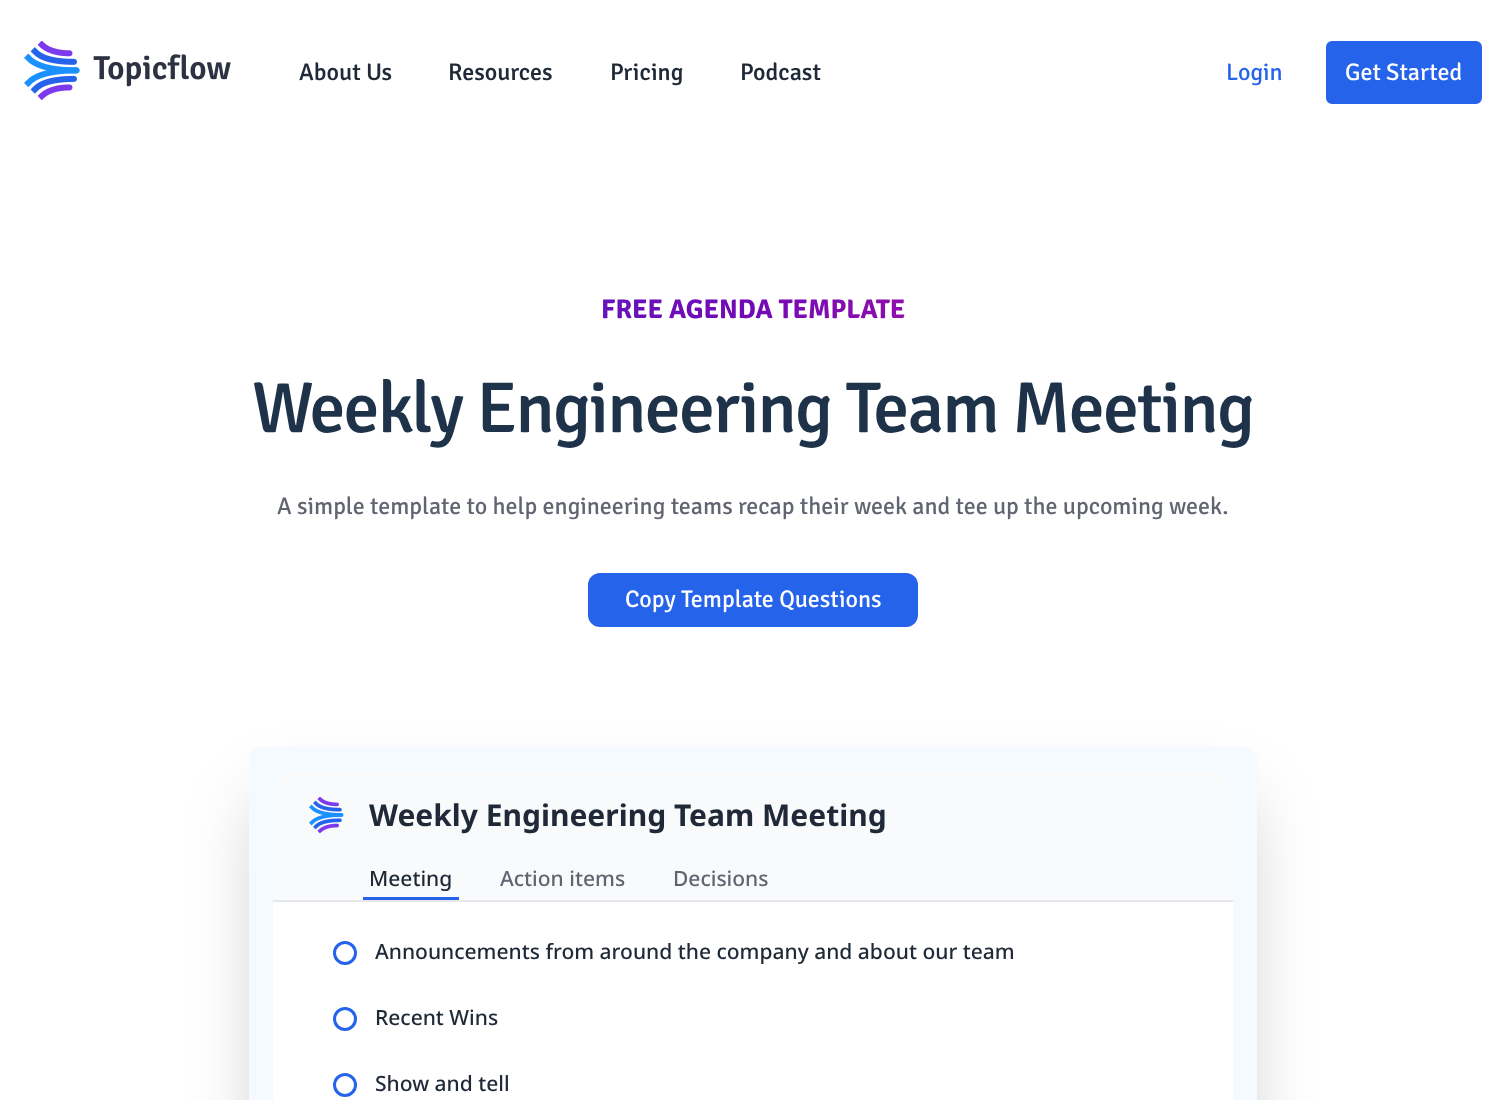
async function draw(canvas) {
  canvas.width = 1505
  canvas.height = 1100
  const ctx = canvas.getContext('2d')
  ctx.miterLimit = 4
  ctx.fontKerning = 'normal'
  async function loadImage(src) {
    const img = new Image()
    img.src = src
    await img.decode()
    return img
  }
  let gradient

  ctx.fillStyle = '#fff'
  ctx.fillRect(0, 0, 1505, 1100)
  ctx.drawImage(await loadImage('image0.png'), 24, 41, 207, 60)
  ctx.font = '500 24px Signika'
  ctx.fillStyle = '#1f2937'
  ctx.fillText('About Us', 299, 80)
  ctx.fillText('Resources', 448, 80)
  ctx.fillText('Pricing', 610, 80)
  ctx.fillText('Podcast', 740, 80)
  ctx.font = '24px Signika'
  ctx.fillStyle = '#2563eb'
  ctx.fillText('Login', 1226, 80)
  ctx.beginPath()
  ctx.roundRect(1327, 42, 154, 61, 5)
  ctx.fill()
  ctx.strokeStyle = '#2563eb'
  ctx.lineWidth = 2
  ctx.stroke()
  ctx.fillStyle = '#fff'
  ctx.fillText('Get Started', 1345, 80)
  ctx.font = 'bold 27px Signika'
  gradient = ctx.createLinearGradient(48, 309, 1458, 309)
  gradient.addColorStop(0, '#3f37c9')
  gradient.addColorStop(0.5, '#7209b7')
  gradient.addColorStop(1, '#f72585')
  ctx.fillStyle = gradient
  ctx.fillText('FREE AGENDA TEMPLATE', 601, 318)
  ctx.letterSpacing = '-1.8px'
  ctx.font = '500 72px Signika'
  ctx.fillStyle = '#1e324a'
  ctx.fillText('Weekly Engineering Team Meeting', 252, 432)
  ctx.letterSpacing = '0px'
  ctx.font = '24px Signika'
  ctx.fillStyle = '#616571'
  ctx.fillText('A simple template to help engineering teams recap their week and tee up the upcoming week.', 277, 514)
  ctx.fillStyle = '#2563eb'
  ctx.beginPath()
  ctx.roundRect(588, 573, 330, 54, 12)
  ctx.fill()
  ctx.fillStyle = '#fff'
  ctx.fillText('Copy Template Questions', 625, 607)
  ctx.fillStyle = '#00000040'
  ctx.filter = 'blur(37.5px)'
  ctx.beginPath()
  ctx.rect(267, 803, 972, 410)
  ctx.fill()
  ctx.filter = 'none'
  ctx.fillStyle = '#f4faff'
  ctx.beginPath()
  ctx.roundRect(249, 747, 1008, 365, 12)
  ctx.fill()
  ctx.fillStyle = '#f9fafb'
  ctx.beginPath()
  ctx.roundRect(273, 771, 960, 78, [24, 24, 0, 0])
  ctx.fill()
  ctx.drawImage(await loadImage('image1.png'), 309, 797, 35, 37)
  ctx.font = 'bold 30px Noto Sans'
  ctx.fillStyle = '#1f2937'
  ctx.fillText('Weekly Engineering Team Meeting', 369, 826)
  ctx.fillStyle = '#f9fafb'
  ctx.fillRect(273, 849, 960, 51)
  ctx.fillStyle = '#e5e7eb'
  ctx.fillRect(273, 900, 960, 2)
  ctx.fillStyle = '#2563eb'
  ctx.fillRect(363, 897, 96, 3)
  ctx.font = '500 21px Noto Sans'
  ctx.fillStyle = '#1f2937'
  ctx.fillText('Meeting', 369, 886)
  ctx.fillStyle = '#616571'
  ctx.fillText('Action items', 500, 886)
  ctx.fillText('Decisions', 673, 886)
  ctx.fillStyle = '#fff'
  ctx.fillRect(273, 902, 960, 198)
  ctx.beginPath()
  ctx.arc(345, 953, 10.5, 0, 2 * Math.PI)
  ctx.lineWidth = 3
  ctx.stroke()
  ctx.fillStyle = '#1f2937'
  ctx.fillText('Announcements from around the company and about our team', 375, 959)
  ctx.beginPath()
  ctx.arc(345, 1019, 10.5, 0, 2 * Math.PI)
  ctx.stroke()
  ctx.fillText('Recent Wins', 375, 1025)
  ctx.beginPath()
  ctx.arc(345, 1085, 10.5, 0, 2 * Math.PI)
  ctx.stroke()
  ctx.fillText('Show and tell', 375, 1091)
}

draw(document.querySelector('canvas'))
